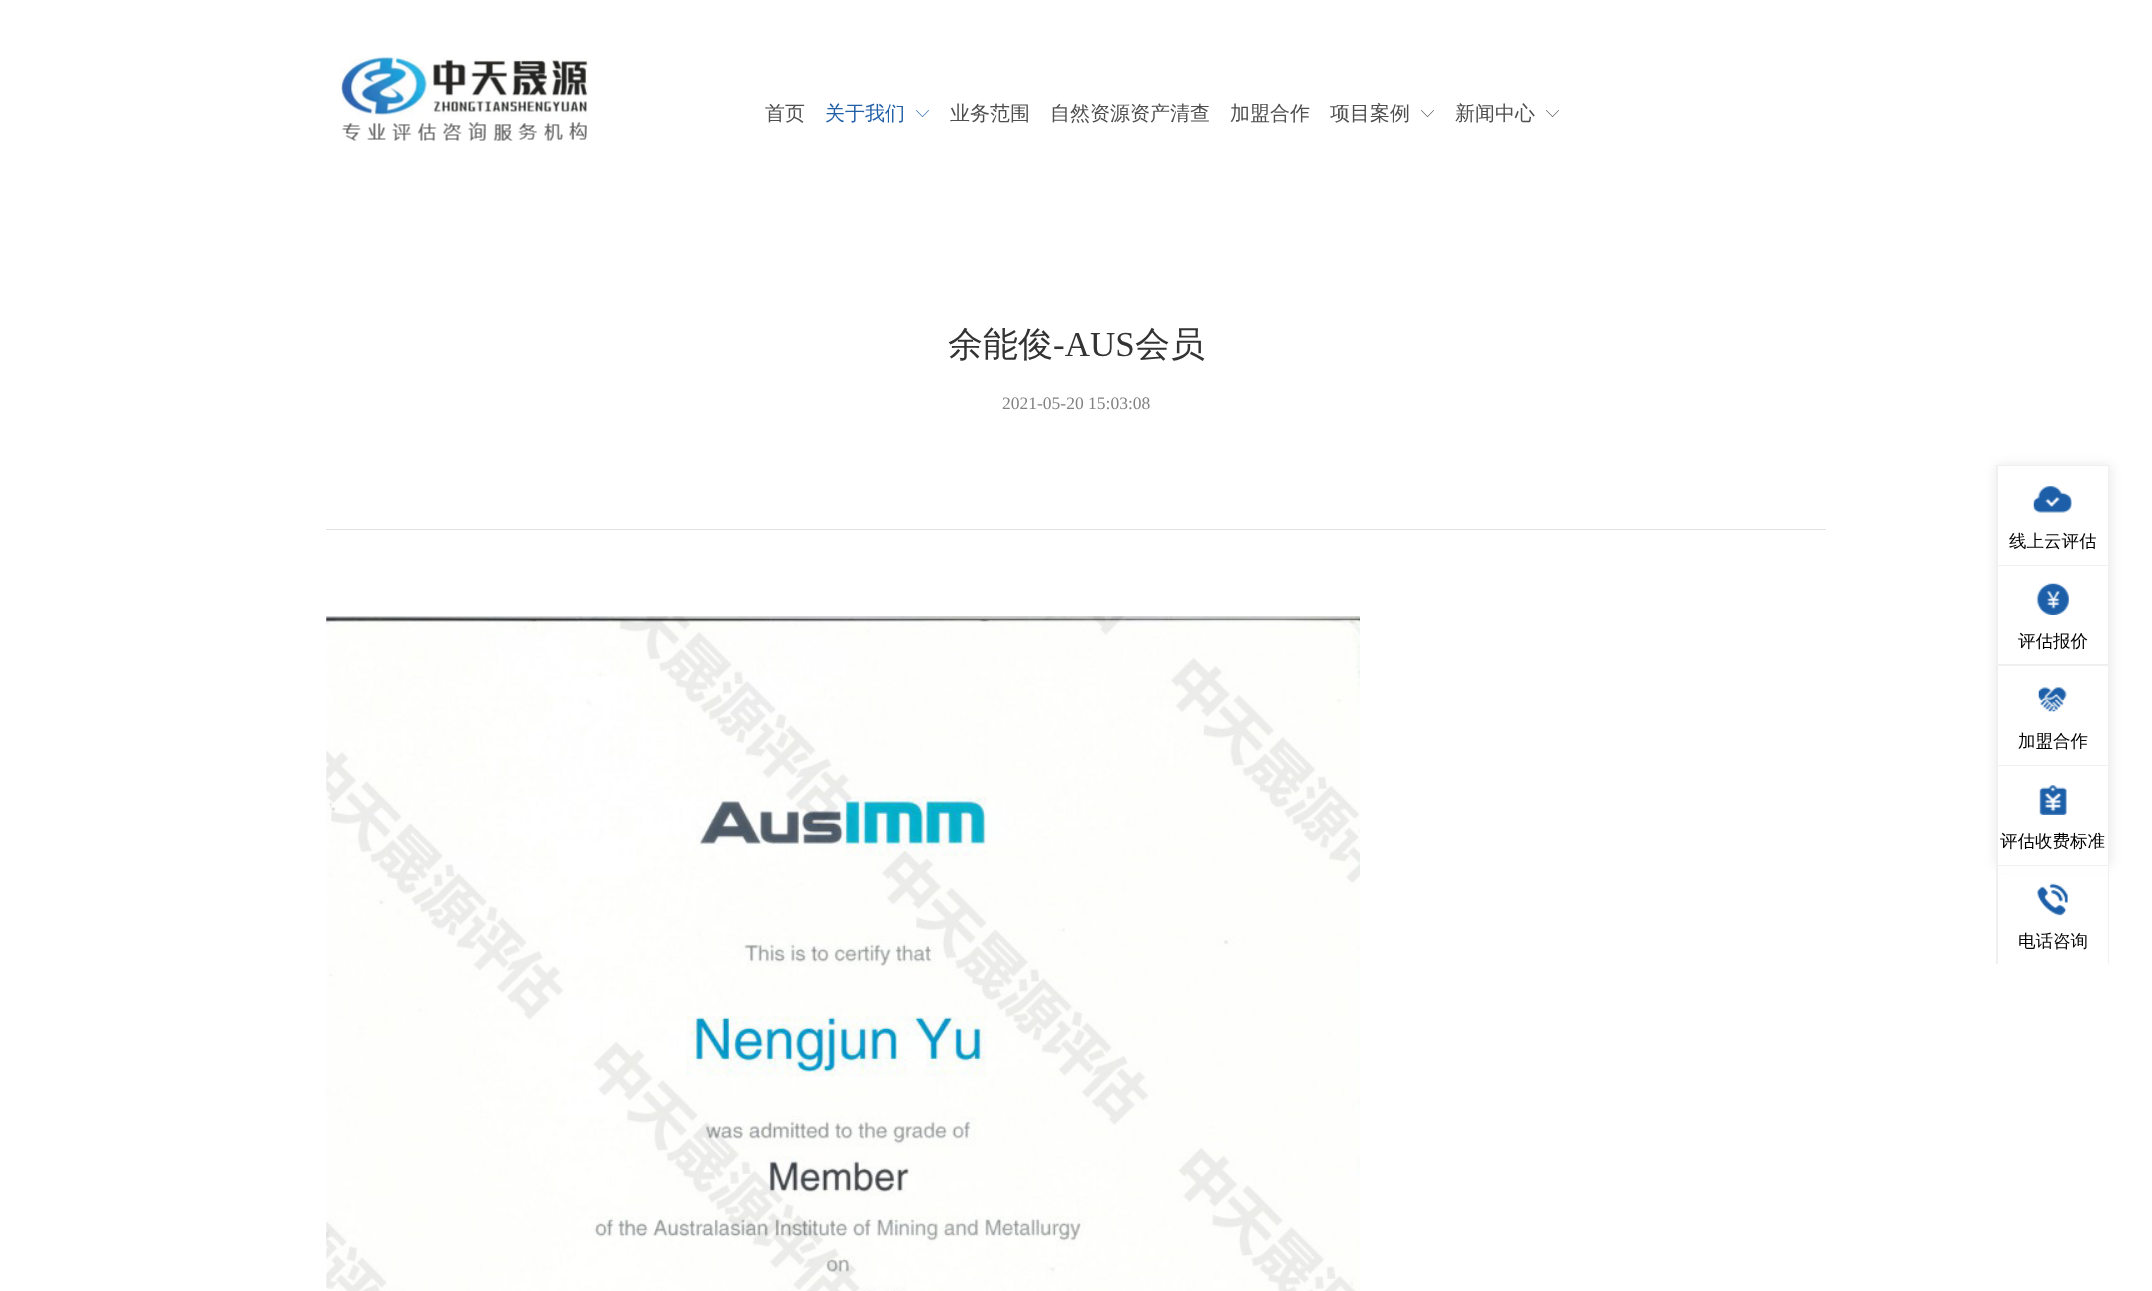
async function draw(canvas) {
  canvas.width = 2152
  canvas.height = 1291
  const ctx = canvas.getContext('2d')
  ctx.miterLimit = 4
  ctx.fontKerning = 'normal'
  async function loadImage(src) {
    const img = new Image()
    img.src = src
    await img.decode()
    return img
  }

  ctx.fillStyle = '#fff'
  ctx.fillRect(0, 0, 2152, 1291)
  ctx.drawImage(await loadImage('image0.png'), 339, 56, 250, 85)
  ctx.font = '500 20px WenQuanYi Zen Hei'
  ctx.fillStyle = '#4e4e4e'
  ctx.fillText('首页', 765, 120)
  ctx.fillStyle = '#225fa7'
  ctx.fillText('关于我们', 825, 120)
  ctx.drawImage(await loadImage('image1.png'), 916, 110, 13, 7)
  ctx.fillStyle = '#4e4e4e'
  ctx.fillText('业务范围', 950, 120)
  ctx.fillText('自然资源资产清查', 1050, 120)
  ctx.fillText('加盟合作', 1230, 120)
  ctx.fillText('项目案例', 1330, 120)
  ctx.drawImage(await loadImage('image2.png'), 1421, 110, 13, 7)
  ctx.fillText('新闻中心', 1455, 120)
  ctx.drawImage(await loadImage('image2.png'), 1546, 110, 13, 7)
  ctx.font = '500 35px WenQuanYi Zen Hei'
  ctx.fillStyle = '#333'
  ctx.fillText('余能俊', 948, 356)
  ctx.font = '35px Liberation Serif'
  ctx.fillText('-AUS', 1053, 356)
  ctx.font = '500 35px WenQuanYi Zen Hei'
  ctx.fillText('会员', 1135, 356)
  ctx.font = '17.5px Liberation Serif'
  ctx.fillStyle = '#828282'
  ctx.fillText('2021-05-20 15:03:08', 1002, 409)
  ctx.fillStyle = '#e1e1e1'
  ctx.fillRect(326, 529, 1500, 1)
  ctx.drawImage(await loadImage('image3.png'), 326, 616, 1034, 675)
  ctx.fillStyle = '#ebe9e9'
  ctx.filter = 'blur(6px)'
  ctx.beginPath()
  ctx.rect(1996, 465, 115, 401)
  ctx.fill()
  ctx.filter = 'none'
  ctx.fillStyle = '#fff'
  ctx.fillRect(1996, 465, 113, 408)
  ctx.fillStyle = '#f0f0f0'
  ctx.beginPath()
  ctx.moveTo(1996, 465)
  ctx.lineTo(2109, 465)
  ctx.lineTo(2108, 466)
  ctx.lineTo(1998, 466)
  ctx.closePath()
  ctx.fill()
  ctx.fillStyle = '#efefeff0'
  ctx.beginPath()
  ctx.moveTo(2109, 465)
  ctx.lineTo(2109, 565)
  ctx.lineTo(2108, 565)
  ctx.lineTo(2108, 466)
  ctx.closePath()
  ctx.fill()
  ctx.beginPath()
  ctx.moveTo(1996, 565)
  ctx.lineTo(1996, 465)
  ctx.lineTo(1998, 466)
  ctx.lineTo(1998, 565)
  ctx.closePath()
  ctx.fill()
  ctx.drawImage(await loadImage('image4.png'), 2033, 486, 39, 27)
  ctx.font = '500 17.5px WenQuanYi Zen Hei'
  ctx.fillStyle = '#000'
  ctx.fillText('线上云评估', 2009, 547)
  ctx.fillStyle = '#f0f0f0'
  ctx.beginPath()
  ctx.moveTo(1996, 565)
  ctx.lineTo(2109, 565)
  ctx.lineTo(2108, 566)
  ctx.lineTo(1998, 566)
  ctx.closePath()
  ctx.fill()
  ctx.fillStyle = '#efefeff0'
  ctx.beginPath()
  ctx.moveTo(2109, 565)
  ctx.lineTo(2109, 665)
  ctx.lineTo(2108, 664)
  ctx.lineTo(2108, 566)
  ctx.closePath()
  ctx.fill()
  ctx.fillStyle = '#efefef'
  ctx.beginPath()
  ctx.moveTo(2109, 665)
  ctx.lineTo(1996, 665)
  ctx.lineTo(1998, 664)
  ctx.lineTo(2108, 664)
  ctx.closePath()
  ctx.fill()
  ctx.fillStyle = '#efefeff0'
  ctx.beginPath()
  ctx.moveTo(1996, 665)
  ctx.lineTo(1996, 565)
  ctx.lineTo(1998, 566)
  ctx.lineTo(1998, 664)
  ctx.closePath()
  ctx.fill()
  ctx.drawImage(await loadImage('image5.png'), 2036, 583, 33, 32)
  ctx.fillStyle = '#000'
  ctx.fillText('评估报价', 2018, 647)
  ctx.fillStyle = '#f0f0f0'
  ctx.beginPath()
  ctx.moveTo(1996, 665)
  ctx.lineTo(2109, 665)
  ctx.lineTo(2108, 666)
  ctx.lineTo(1998, 666)
  ctx.closePath()
  ctx.fill()
  ctx.fillStyle = '#efefeff0'
  ctx.beginPath()
  ctx.moveTo(2109, 665)
  ctx.lineTo(2109, 765)
  ctx.lineTo(2108, 765)
  ctx.lineTo(2108, 666)
  ctx.closePath()
  ctx.fill()
  ctx.beginPath()
  ctx.moveTo(1996, 765)
  ctx.lineTo(1996, 665)
  ctx.lineTo(1998, 666)
  ctx.lineTo(1998, 765)
  ctx.closePath()
  ctx.fill()
  ctx.drawImage(await loadImage('image6.png'), 2038, 687, 29, 25)
  ctx.fillStyle = '#000'
  ctx.fillText('加盟合作', 2018, 747)
  ctx.fillStyle = '#f0f0f0'
  ctx.beginPath()
  ctx.moveTo(1996, 765)
  ctx.lineTo(2109, 765)
  ctx.lineTo(2108, 766)
  ctx.lineTo(1998, 766)
  ctx.closePath()
  ctx.fill()
  ctx.fillStyle = '#efefeff0'
  ctx.beginPath()
  ctx.moveTo(2109, 765)
  ctx.lineTo(2109, 865)
  ctx.lineTo(2108, 865)
  ctx.lineTo(2108, 766)
  ctx.closePath()
  ctx.fill()
  ctx.beginPath()
  ctx.moveTo(1996, 865)
  ctx.lineTo(1996, 765)
  ctx.lineTo(1998, 766)
  ctx.lineTo(1998, 865)
  ctx.closePath()
  ctx.fill()
  ctx.drawImage(await loadImage('image7.png'), 2039, 785, 28, 30)
  ctx.fillStyle = '#000'
  ctx.fillText('评估收费标准', 2000, 847)
  ctx.fillStyle = '#f0f0f0'
  ctx.beginPath()
  ctx.moveTo(1996, 865)
  ctx.lineTo(2109, 865)
  ctx.lineTo(2108, 866)
  ctx.lineTo(1998, 866)
  ctx.closePath()
  ctx.fill()
  ctx.fillStyle = '#efefeff0'
  ctx.beginPath()
  ctx.moveTo(2109, 865)
  ctx.lineTo(2109, 964)
  ctx.lineTo(2108, 964)
  ctx.lineTo(2108, 866)
  ctx.closePath()
  ctx.fill()
  ctx.beginPath()
  ctx.moveTo(1996, 964)
  ctx.lineTo(1996, 865)
  ctx.lineTo(1998, 866)
  ctx.lineTo(1998, 964)
  ctx.closePath()
  ctx.fill()
  ctx.drawImage(await loadImage('image8.png'), 2037, 883, 31, 33)
  ctx.fillStyle = '#000'
  ctx.fillText('电话咨询', 2018, 947)
}

draw(document.querySelector('canvas'))
